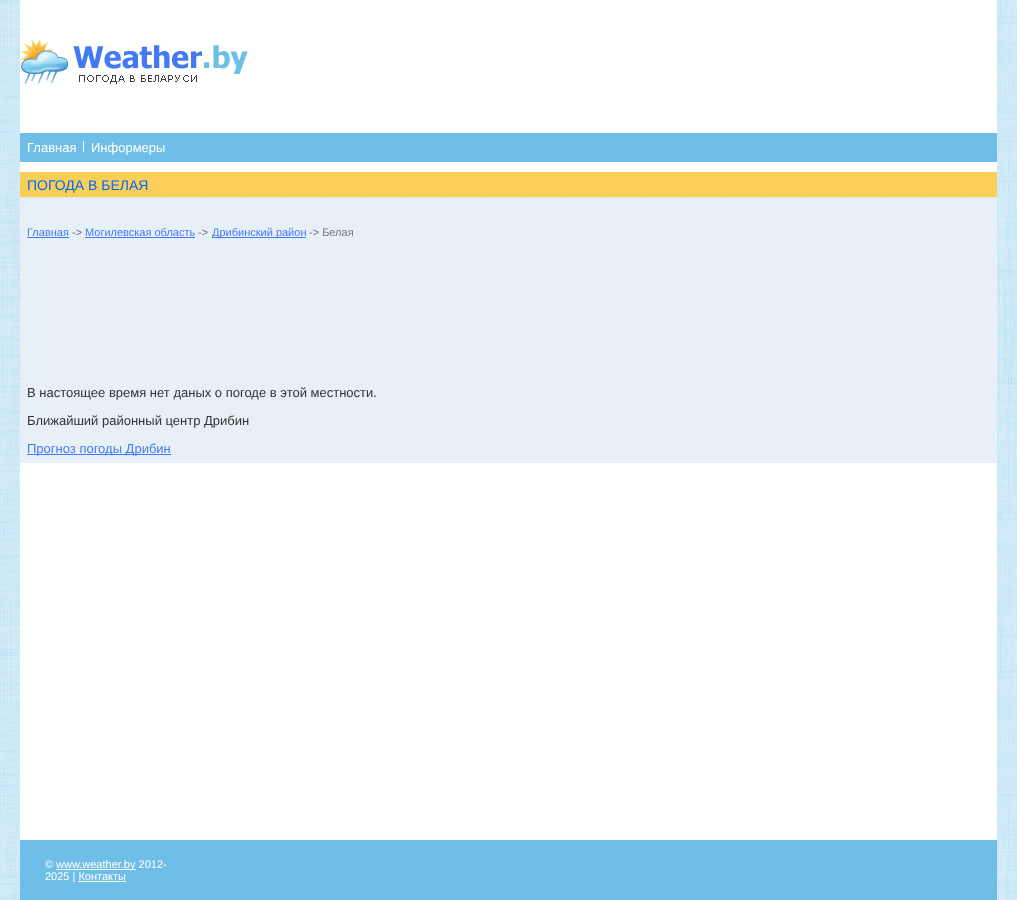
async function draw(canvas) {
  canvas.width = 1017
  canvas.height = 900
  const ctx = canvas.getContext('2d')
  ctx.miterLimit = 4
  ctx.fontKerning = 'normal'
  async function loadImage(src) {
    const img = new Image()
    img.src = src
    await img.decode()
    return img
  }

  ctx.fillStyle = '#fff'
  ctx.fillRect(0, 0, 1017, 900)
  ctx.drawImage(await loadImage('image0.png'), 0, 0, 1017, 900)
  ctx.fillRect(20, 0, 977, 172)
  ctx.drawImage(await loadImage('image1.png'), 20, 38, 228, 46)
  ctx.fillStyle = '#6fbee8'
  ctx.fillRect(20, 133, 977, 29)
  ctx.font = '13px Liberation Sans'
  ctx.fillStyle = '#fff'
  ctx.fillText('Главная', 27, 152)
  ctx.fillRect(83, 141, 1, 11)
  ctx.fillText('Информеры', 91, 152)
  ctx.fillRect(20, 463, 977, 377)
  ctx.fillStyle = '#e6f0f6'
  ctx.fillRect(20, 197, 977, 266)
  ctx.fillStyle = '#f9cf58'
  ctx.fillRect(20, 172, 977, 25)
  ctx.font = '14px Liberation Sans'
  ctx.fillStyle = '#06f'
  ctx.fillText('ПОГОДА В БЕЛАЯ', 27, 190)
  ctx.drawImage(await loadImage('image2.png'), 20, 197, 977, 1)
  ctx.font = '11px Liberation Sans'
  ctx.fillStyle = '#4379f2'
  ctx.fillText('Главная', 27, 236)
  ctx.fillRect(27, 237, 42, 1)
  ctx.fillStyle = '#6f7784'
  ctx.fillText('->', 72, 236)
  ctx.fillStyle = '#4379f2'
  ctx.fillText('Могилевская область', 85, 236)
  ctx.fillRect(85, 237, 110, 1)
  ctx.fillStyle = '#6f7784'
  ctx.fillText('->', 198, 236)
  ctx.fillStyle = '#4379f2'
  ctx.fillRect(212, 237, 94, 1)
  ctx.fillText('Дрибинский район', 212, 236)
  ctx.fillStyle = '#6f7784'
  ctx.fillText('-> Белая', 309, 236)
  ctx.font = '13px Liberation Sans'
  ctx.fillStyle = '#333'
  ctx.fillText('В настоящее время нет даных о погоде в этой местности.', 27, 397)
  ctx.fillText('Ближайший районный центр Дрибин', 27, 425)
  ctx.fillStyle = '#4379f2'
  ctx.fillRect(27, 454, 144, 1)
  ctx.fillText('Прогноз погоды Дрибин', 27, 453)
  ctx.fillStyle = '#6fbee8'
  ctx.fillRect(20, 840, 977, 60)
  ctx.font = '11px Liberation Sans'
  ctx.fillStyle = '#fff'
  ctx.fillText('©', 45, 868)
  ctx.fillRect(56, 869, 80, 1)
  ctx.fillText('www.weather.by 2012-', 56, 868)
  ctx.fillText('2025 | Контакты', 45, 880)
  ctx.fillRect(78, 881, 48, 1)
}

draw(document.querySelector('canvas'))
